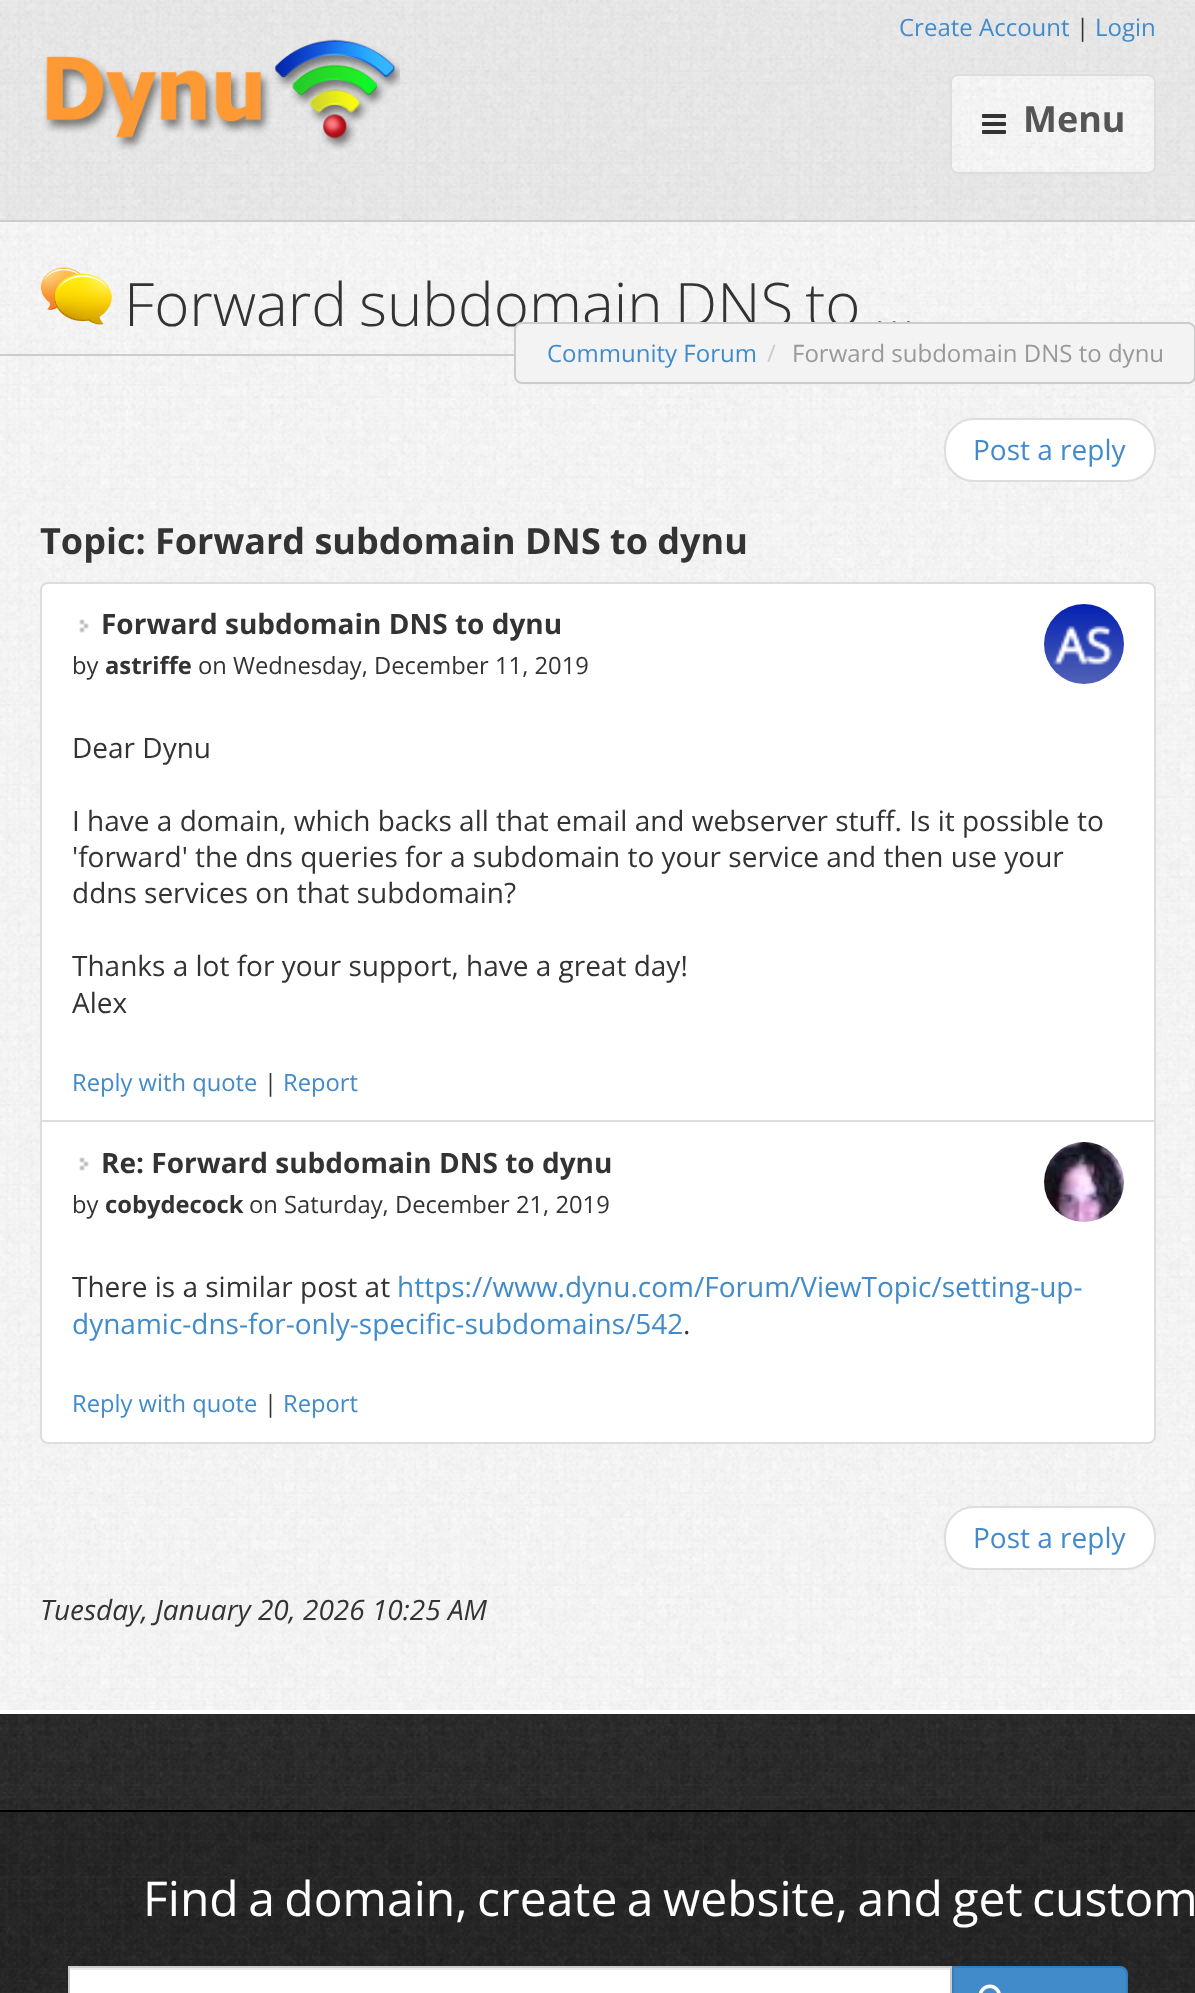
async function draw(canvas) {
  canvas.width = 1195
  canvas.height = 1993
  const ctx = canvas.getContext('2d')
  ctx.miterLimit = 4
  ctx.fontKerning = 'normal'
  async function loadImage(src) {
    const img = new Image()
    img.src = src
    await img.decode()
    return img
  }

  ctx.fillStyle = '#fff'
  ctx.fillRect(0, 0, 1195, 1993)
  ctx.drawImage(await loadImage('image0.png'), 0, 0, 1195, 220)
  ctx.fillStyle = '#ccc'
  ctx.fillRect(0, 220, 1195, 2)
  ctx.font = '24px Open Sans'
  ctx.fillStyle = '#428bca'
  ctx.fillText('Create Account', 899, 36)
  ctx.fillStyle = '#333'
  ctx.fillText('|', 1076, 36)
  ctx.fillStyle = '#428bca'
  ctx.fillText('Login', 1095, 36)
  ctx.drawImage(await loadImage('image1.png'), 44, 39, 356, 111)
  ctx.drawImage(await loadImage('image2.png'), 950, 74, 206, 100)
  ctx.beginPath()
  ctx.roundRect(951, 75, 204, 98, 7)
  ctx.strokeStyle = '#ddd'
  ctx.lineWidth = 2
  ctx.stroke()
  ctx.drawImage(await loadImage('image3.png'), 982, 114, 24, 20)
  ctx.font = 'bold 36px Open Sans'
  ctx.fillStyle = '#555'
  ctx.fillText('Menu', 1023, 132)
  ctx.drawImage(await loadImage('image4.png'), 0, 222, 1195, 1488)
  ctx.fillStyle = '#ccc'
  ctx.fillRect(0, 354, 514, 2)
  ctx.drawImage(await loadImage('image5.png'), 40, 267, 72, 58)
  ctx.wordSpacing = '-3.5px'
  ctx.font = '300 60px Open Sans'
  ctx.fillStyle = '#333'
  ctx.fillText('Forward subdomain DNS to ...', 124, 326)
  ctx.fillStyle = '#f3f3f3'
  ctx.beginPath()
  ctx.roundRect(515, 323, 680, 60, 7)
  ctx.fill()
  ctx.strokeStyle = '#ccc'
  ctx.stroke()
  ctx.wordSpacing = '0px'
  ctx.font = '24px Open Sans'
  ctx.fillStyle = '#428bca'
  ctx.fillText('Community Forum', 547, 362)
  ctx.fillStyle = '#ccc'
  ctx.fillText('/', 767, 362)
  ctx.fillStyle = '#999'
  ctx.fillText('Forward subdomain DNS to dynu', 792, 362)
  ctx.fillStyle = '#fff'
  ctx.beginPath()
  ctx.roundRect(945, 419, 210, 62, 29)
  ctx.fill()
  ctx.strokeStyle = '#ddd'
  ctx.stroke()
  ctx.font = '28px Open Sans'
  ctx.fillStyle = '#428bca'
  ctx.fillText('Post a reply', 973, 460)
  ctx.font = 'bold 36px Open Sans'
  ctx.fillStyle = '#333'
  ctx.fillText('Topic: Forward subdomain DNS to dynu', 40, 554)
  ctx.fillStyle = '#fff'
  ctx.beginPath()
  ctx.roundRect(41, 583, 1114, 538, [7, 7, 0, 0])
  ctx.fill()
  ctx.stroke()
  ctx.drawImage(await loadImage('image6.png'), 79, 619, 10, 14)
  ctx.font = 'bold 28px Open Sans'
  ctx.fillStyle = '#333'
  ctx.fillText('Forward subdomain DNS to dynu', 101, 634)
  ctx.drawImage(await loadImage('image7.png'), 1044, 604, 80, 80)
  ctx.font = '23.75px Open Sans'
  ctx.fillText('by', 72, 674)
  ctx.font = 'bold 23.75px Open Sans'
  ctx.fillText('astriffe', 105, 674)
  ctx.font = '23.75px Open Sans'
  ctx.fillText('on Wednesday, December 11, 2019', 198, 674)
  ctx.font = '28px Open Sans'
  ctx.fillText('Dear Dynu', 72, 758)
  ctx.fillText('I have a domain, which backs all that email and webserver stuff. Is it possible to', 72, 831)
  ctx.fillText('\'forward\' the dns queries for a subdomain to your service and then use your', 72, 867)
  ctx.fillText('ddns services on that subdomain?', 72, 903)
  ctx.fillText('Thanks a lot for your support, have a great day!', 72, 976)
  ctx.fillText('Alex', 72, 1013)
  ctx.font = '23.75px Open Sans'
  ctx.fillStyle = '#428bca'
  ctx.fillText('Reply with quote', 72, 1091)
  ctx.fillStyle = '#333'
  ctx.fillText('|', 264, 1091)
  ctx.fillStyle = '#428bca'
  ctx.fillText('Report', 283, 1091)
  ctx.fillStyle = '#fff'
  ctx.beginPath()
  ctx.roundRect(41, 1121, 1114, 322, [0, 0, 7, 7])
  ctx.fill()
  ctx.stroke()
  ctx.drawImage(await loadImage('image6.png'), 79, 1157, 10, 14)
  ctx.font = 'bold 28px Open Sans'
  ctx.fillStyle = '#333'
  ctx.fillText('Re: Forward subdomain DNS to dynu', 101, 1173)
  ctx.drawImage(await loadImage('image8.png'), 1044, 1142, 80, 80)
  ctx.font = '23.75px Open Sans'
  ctx.fillText('by', 72, 1213)
  ctx.font = 'bold 23.75px Open Sans'
  ctx.fillText('cobydecock', 105, 1213)
  ctx.font = '23.75px Open Sans'
  ctx.fillText('on Saturday, December 21, 2019', 249, 1213)
  ctx.font = '28px Open Sans'
  ctx.fillText('There is a similar post at', 72, 1297)
  ctx.fillStyle = '#428bca'
  ctx.fillText('https://www.dynu.com/Forum/ViewTopic/setting-up-', 397, 1297)
  ctx.fillText('dynamic-dns-for-only-specific-subdomains/542', 72, 1334)
  ctx.fillStyle = '#333'
  ctx.fillText('.', 683, 1334)
  ctx.font = '23.75px Open Sans'
  ctx.fillStyle = '#428bca'
  ctx.fillText('Reply with quote', 72, 1412)
  ctx.fillStyle = '#333'
  ctx.fillText('|', 264, 1412)
  ctx.fillStyle = '#428bca'
  ctx.fillText('Report', 283, 1412)
  ctx.fillStyle = '#fff'
  ctx.beginPath()
  ctx.roundRect(945, 1507, 210, 62, 29)
  ctx.fill()
  ctx.stroke()
  ctx.font = '28px Open Sans'
  ctx.fillStyle = '#428bca'
  ctx.fillText('Post a reply', 973, 1548)
  ctx.font = 'italic 28px Open Sans'
  ctx.fillStyle = '#333'
  ctx.fillText('Tuesday, January 20, 2026 10:25 AM', 40, 1620)
  ctx.drawImage(await loadImage('image9.png'), 0, 1714, 1195, 279)
  ctx.fillStyle = '#0000001a'
  ctx.fillRect(0, 1812, 1195, 181)
  ctx.fillStyle = '#000'
  ctx.fillRect(0, 1810, 1195, 2)
  ctx.wordSpacing = '-3px'
  ctx.font = '48px Open Sans'
  ctx.fillStyle = '#fff'
  ctx.fillText('Find a domain, create a website, and get custom', 143, 1916)
  ctx.fillRect(70, 1970, 880, 23)
  ctx.fillStyle = '#ececec'
  ctx.fillRect(70, 1968, 880, 2)
  ctx.strokeStyle = '#ccc'
  ctx.strokeRect(69, 1967, 882, 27)
  ctx.fillStyle = '#428bca'
  ctx.beginPath()
  ctx.moveTo(953, 1967)
  ctx.lineTo(1120, 1967)
  ctx.bezierCurveTo(1124, 1967, 1127, 1970, 1127, 1974)
  ctx.lineTo(1127, 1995)
  ctx.bezierCurveTo(1127, 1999, 1124, 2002, 1120, 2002)
  ctx.lineTo(953, 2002)
  ctx.closePath()
  ctx.fill()
  ctx.strokeStyle = '#357ebd'
  ctx.stroke()
  ctx.drawImage(await loadImage('image10.png'), 979, 1984, 22, 9)
}

draw(document.querySelector('canvas'))
